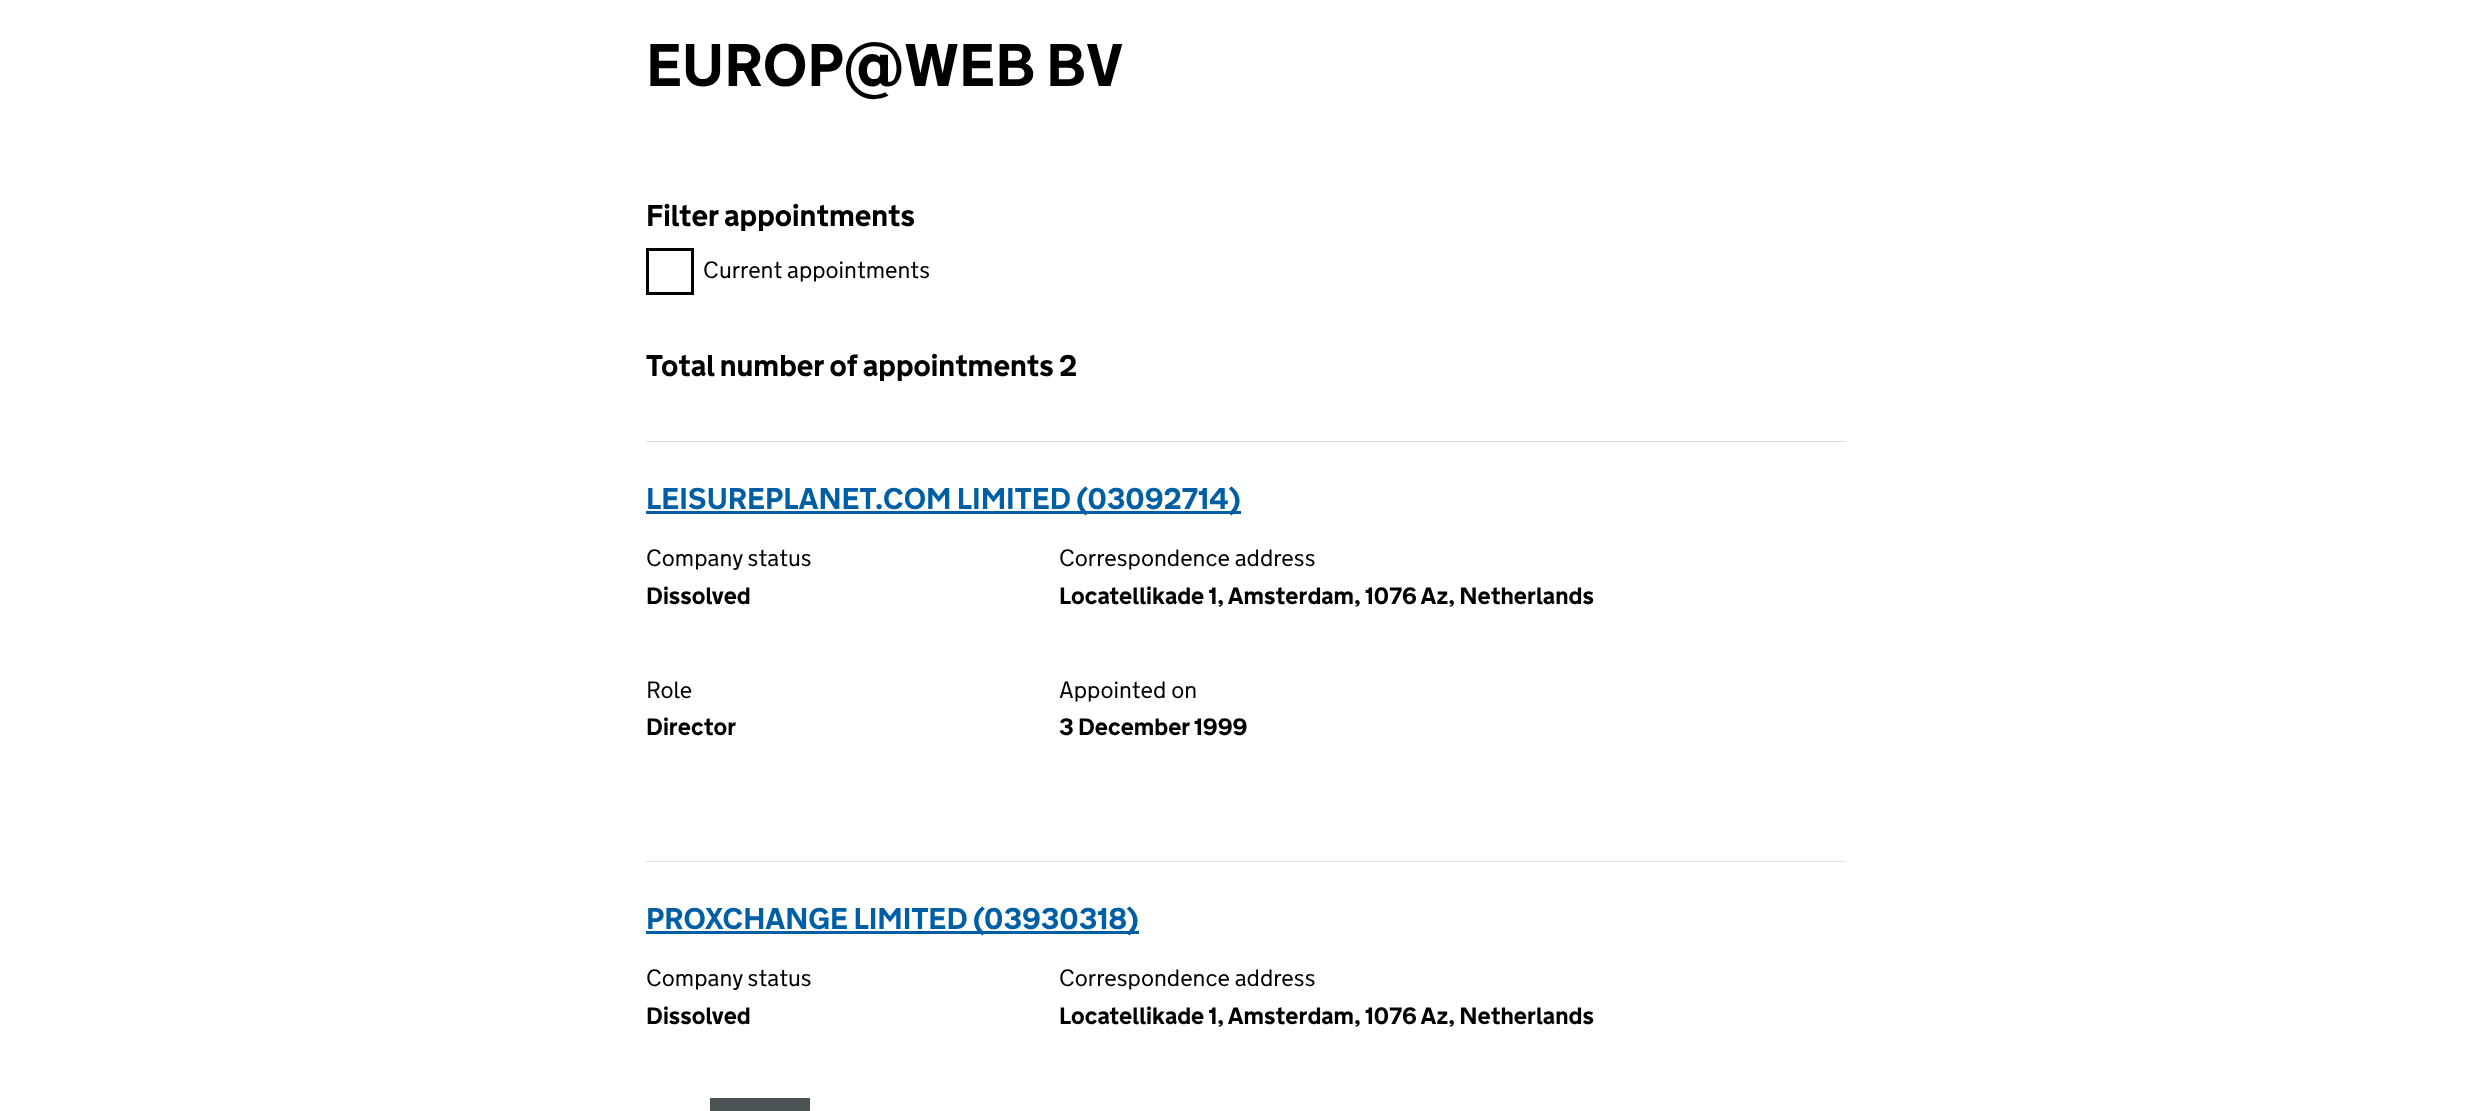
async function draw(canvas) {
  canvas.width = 2492
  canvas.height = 1111
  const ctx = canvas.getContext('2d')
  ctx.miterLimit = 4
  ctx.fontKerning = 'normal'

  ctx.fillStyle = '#fff'
  ctx.fillRect(0, 0, 2492, 1111)
  ctx.font = 'bold 60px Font'
  ctx.fillStyle = '#000'
  ctx.fillText('EUROP@WEB BV', 646, 86)
  ctx.font = 'bold 30px Font'
  ctx.fillText('Filter appointments', 646, 226)
  ctx.strokeStyle = '#000'
  ctx.lineWidth = 3
  ctx.strokeRect(647.5, 249.5, 45, 44)
  ctx.font = '300 23.75px Font'
  ctx.fillText('Current appointments', 703, 278)
  ctx.font = 'bold 30px Font'
  ctx.fillText('Total number of appointments 2', 646, 376)
  ctx.fillStyle = '#dee0e2'
  ctx.fillRect(646, 441, 1200, 1)
  ctx.fillStyle = '#005ea5'
  ctx.fillRect(646, 511, 595, 3)
  ctx.fillText('LEISUREPLANET.COM LIMITED (03092714)', 646, 509)
  ctx.font = '300 23.75px Font'
  ctx.fillStyle = '#000'
  ctx.fillText('Company status', 646, 566)
  ctx.font = 'bold 23.75px Font'
  ctx.fillText('Dissolved', 646, 604)
  ctx.font = '300 23.75px Font'
  ctx.fillText('Correspondence address', 1059, 566)
  ctx.font = 'bold 23.75px Font'
  ctx.fillText('Locatellikade 1, Amsterdam, 1076 Az, Netherlands', 1059, 604)
  ctx.font = '300 23.75px Font'
  ctx.fillText('Role', 646, 698)
  ctx.font = 'bold 23.75px Font'
  ctx.fillText('Director', 646, 735)
  ctx.font = '300 23.75px Font'
  ctx.fillText('Appointed on', 1059, 698)
  ctx.font = 'bold 23.75px Font'
  ctx.fillText('3 December 1999', 1059, 735)
  ctx.fillStyle = '#dee0e2'
  ctx.fillRect(646, 861, 1200, 1)
  ctx.fillStyle = '#005ea5'
  ctx.fillRect(646, 931, 493, 3)
  ctx.font = 'bold 30px Font'
  ctx.fillText('PROXCHANGE LIMITED (03930318)', 646, 929)
  ctx.font = '300 23.75px Font'
  ctx.fillStyle = '#000'
  ctx.fillText('Company status', 646, 986)
  ctx.font = 'bold 23.75px Font'
  ctx.fillText('Dissolved', 646, 1024)
  ctx.font = '300 23.75px Font'
  ctx.fillText('Correspondence address', 1059, 986)
  ctx.font = 'bold 23.75px Font'
  ctx.fillText('Locatellikade 1, Amsterdam, 1076 Az, Netherlands', 1059, 1024)
  ctx.fillStyle = '#4b5253'
  ctx.fillRect(710, 1098, 100, 13)
}

draw(document.querySelector('canvas'))
